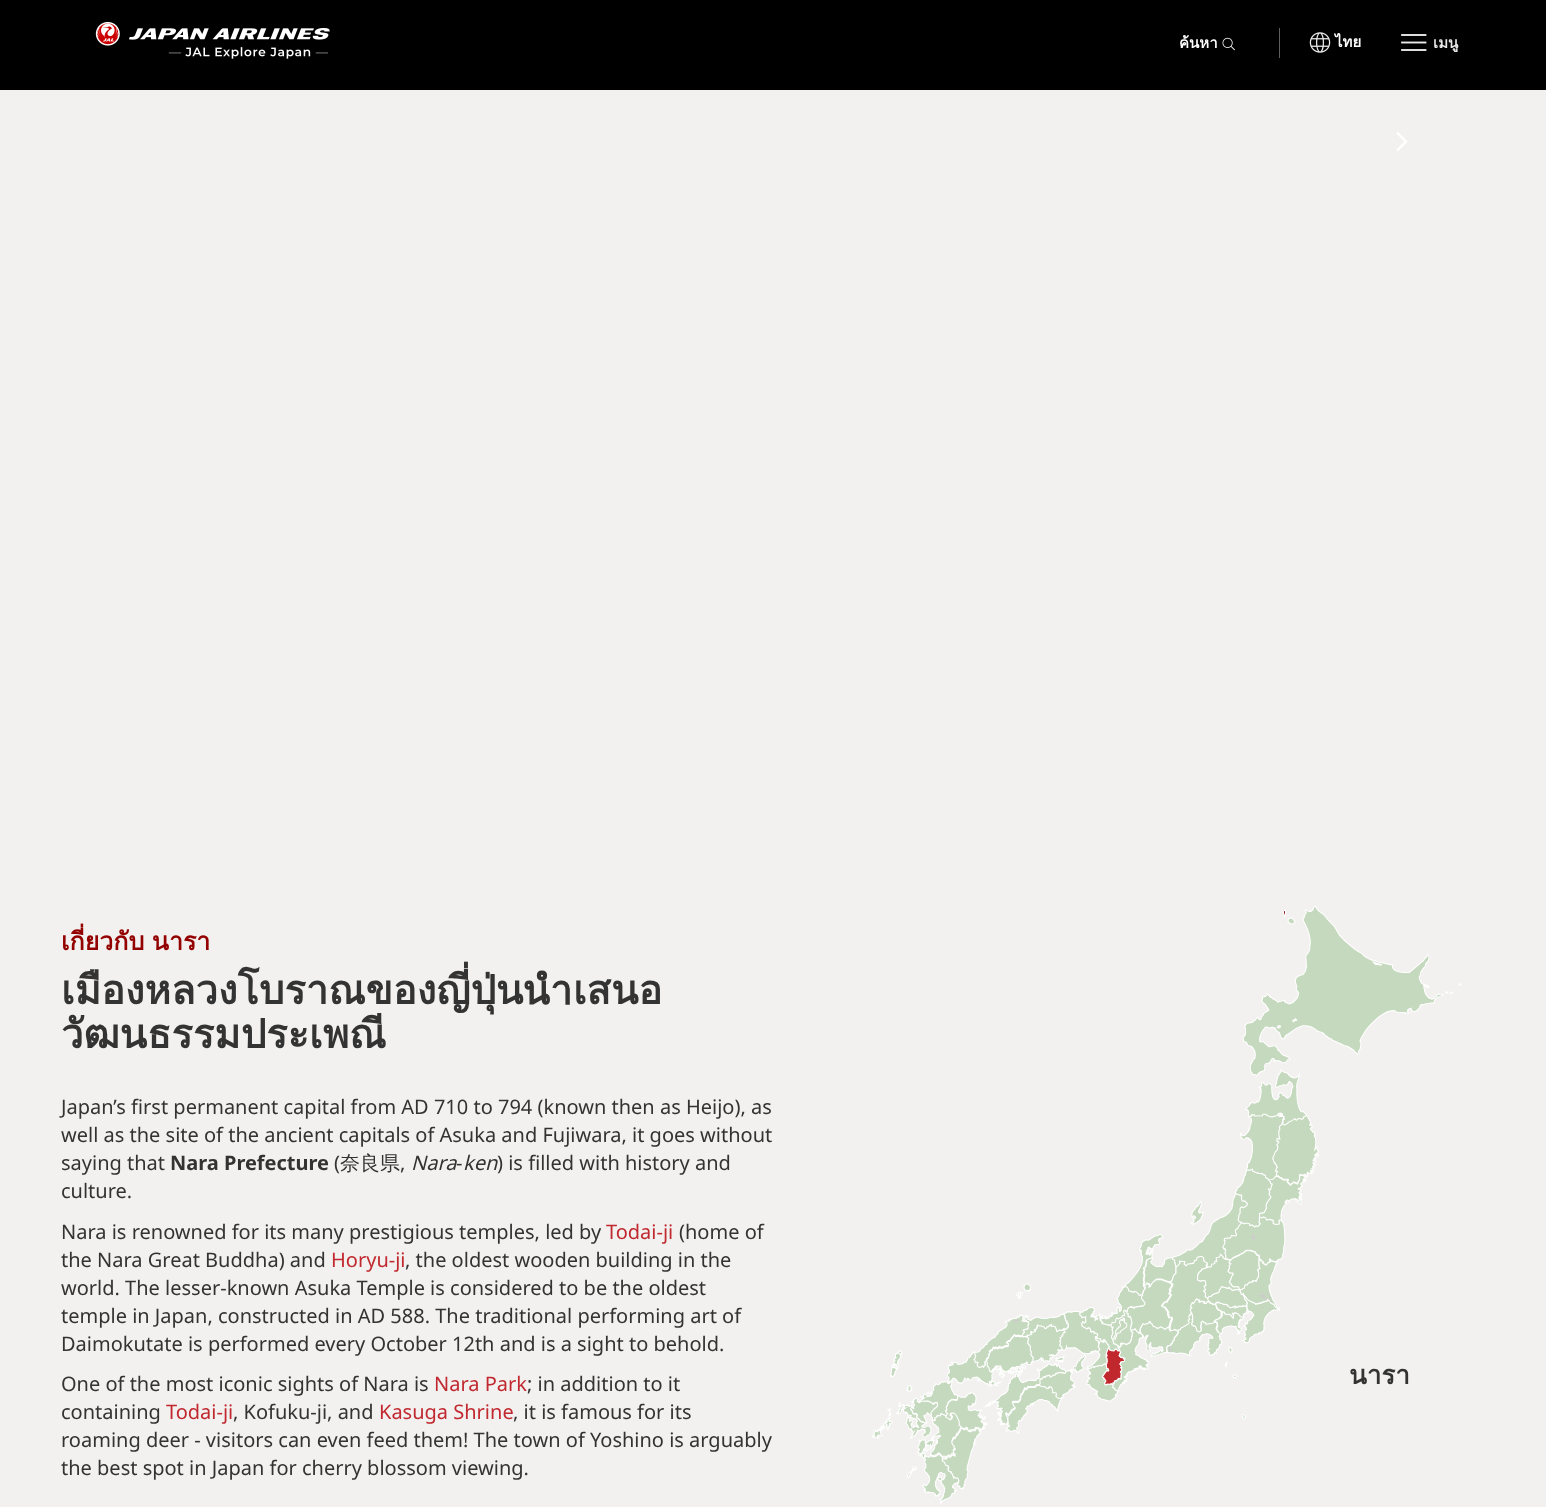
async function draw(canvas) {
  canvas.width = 1546
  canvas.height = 1507
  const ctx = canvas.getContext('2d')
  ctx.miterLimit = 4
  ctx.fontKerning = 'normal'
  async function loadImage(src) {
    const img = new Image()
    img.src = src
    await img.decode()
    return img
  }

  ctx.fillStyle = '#f2f1ef'
  ctx.fillRect(0, 0, 1546, 1507)
  ctx.fillStyle = '#000'
  ctx.fillRect(0, 0, 1546, 90)
  ctx.drawImage(await loadImage('image0.png'), 95, 21, 235, 38)
  ctx.font = 'bold 15px Loma'
  ctx.fillStyle = '#fff'
  ctx.fillText('ค้นหา', 1179, 48)
  ctx.drawImage(await loadImage('image1.png'), 1222, 37, 13, 14)
  ctx.fillStyle = '#5e5e5e'
  ctx.fillRect(1279, 28, 1, 30)
  ctx.drawImage(await loadImage('image2.png'), 1309, 32, 22, 21)
  ctx.fillStyle = '#fff'
  ctx.fillText('ไทย', 1335, 47)
  ctx.drawImage(await loadImage('image3.png'), 1401, 34, 26, 17)
  ctx.fillStyle = '#ebebeb'
  ctx.fillText('เมนู', 1433, 48)
  ctx.drawImage(await loadImage('image4.png'), 1396, 132, 12, 19)
  ctx.wordSpacing = '-1px'
  ctx.font = 'bold 25px Loma'
  ctx.fillStyle = '#930000'
  ctx.fillText('เกี่ยวกับ นารา', 61, 950)
  ctx.wordSpacing = '0px'
  ctx.font = 'bold 40px Loma'
  ctx.fillStyle = '#333'
  ctx.fillText('เมืองหลวงโบราณของญี่ปุ่นนำเสนอ', 61, 1004)
  ctx.fillText('วัฒนธรรมประเพณี', 61, 1048)
  ctx.font = '20px Noto Sans'
  ctx.fillText('Japan’s first permanent capital from AD 710 to 794 (known then as Heijo), as', 61, 1114)
  ctx.fillText('well as the site of the ancient capitals of Asuka and Fujiwara, it goes without', 61, 1142)
  ctx.fillText('saying that', 61, 1170)
  ctx.font = 'bold 20px Noto Sans'
  ctx.fillText('Nara Prefecture', 170, 1170)
  ctx.font = '20px Noto Sans'
  ctx.fillText('(', 334, 1170)
  ctx.font = '500 20px WenQuanYi Zen Hei'
  ctx.fillText('奈良県', 340, 1170)
  ctx.font = 'italic 20px Noto Sans'
  ctx.fillText('Nara', 411, 1170)
  ctx.font = '20px Noto Sans'
  ctx.fillText('-', 456, 1170)
  ctx.font = 'italic 20px Noto Sans'
  ctx.fillText('ken', 463, 1170)
  ctx.font = '20px Noto Sans'
  ctx.fillText(') is filled with history and', 497, 1170)
  ctx.fillText(',', 400, 1170)
  ctx.fillText('culture.', 61, 1198)
  ctx.fillText('Nara is renowned for its many prestigious temples, led by', 61, 1239)
  ctx.fillStyle = '#c1282f'
  ctx.fillText('Todai-ji', 606, 1239)
  ctx.fillStyle = '#333'
  ctx.fillText('(home of', 679, 1239)
  ctx.fillText('the Nara Great Buddha) and', 61, 1267)
  ctx.fillStyle = '#c1282f'
  ctx.fillText('Horyu-ji', 331, 1267)
  ctx.fillStyle = '#333'
  ctx.fillText(', the oldest wooden building in the', 405, 1267)
  ctx.fillText('world. The lesser-known Asuka Temple is considered to be the oldest', 61, 1295)
  ctx.fillText('temple in Japan, constructed in AD 588. The traditional performing art of', 61, 1323)
  ctx.fillText('Daimokutate is performed every October 12th and is a sight to behold.', 61, 1351)
  ctx.fillText('One of the most iconic sights of Nara is', 61, 1391)
  ctx.fillStyle = '#c1282f'
  ctx.fillText('Nara Park', 434, 1391)
  ctx.fillStyle = '#333'
  ctx.fillText('; in addition to it', 527, 1391)
  ctx.fillText('containing', 61, 1419)
  ctx.fillStyle = '#c1282f'
  ctx.fillText('Todai-ji', 166, 1419)
  ctx.fillStyle = '#333'
  ctx.fillText(', Kofuku-ji, and', 233, 1419)
  ctx.fillStyle = '#c1282f'
  ctx.fillText('Kasuga Shrine', 379, 1419)
  ctx.fillStyle = '#333'
  ctx.fillText(', it is famous for its', 513, 1419)
  ctx.fillText('roaming deer - visitors can even feed them! The town of Yoshino is arguably', 61, 1447)
  ctx.fillText('the best spot in Japan for cherry blossom viewing.', 61, 1475)
  ctx.drawImage(await loadImage('image5.png'), 872, 906, 590, 598)
  ctx.font = 'bold 26px Loma'
  ctx.fillText('นารา', 1349, 1384)
}

draw(document.querySelector('canvas'))
